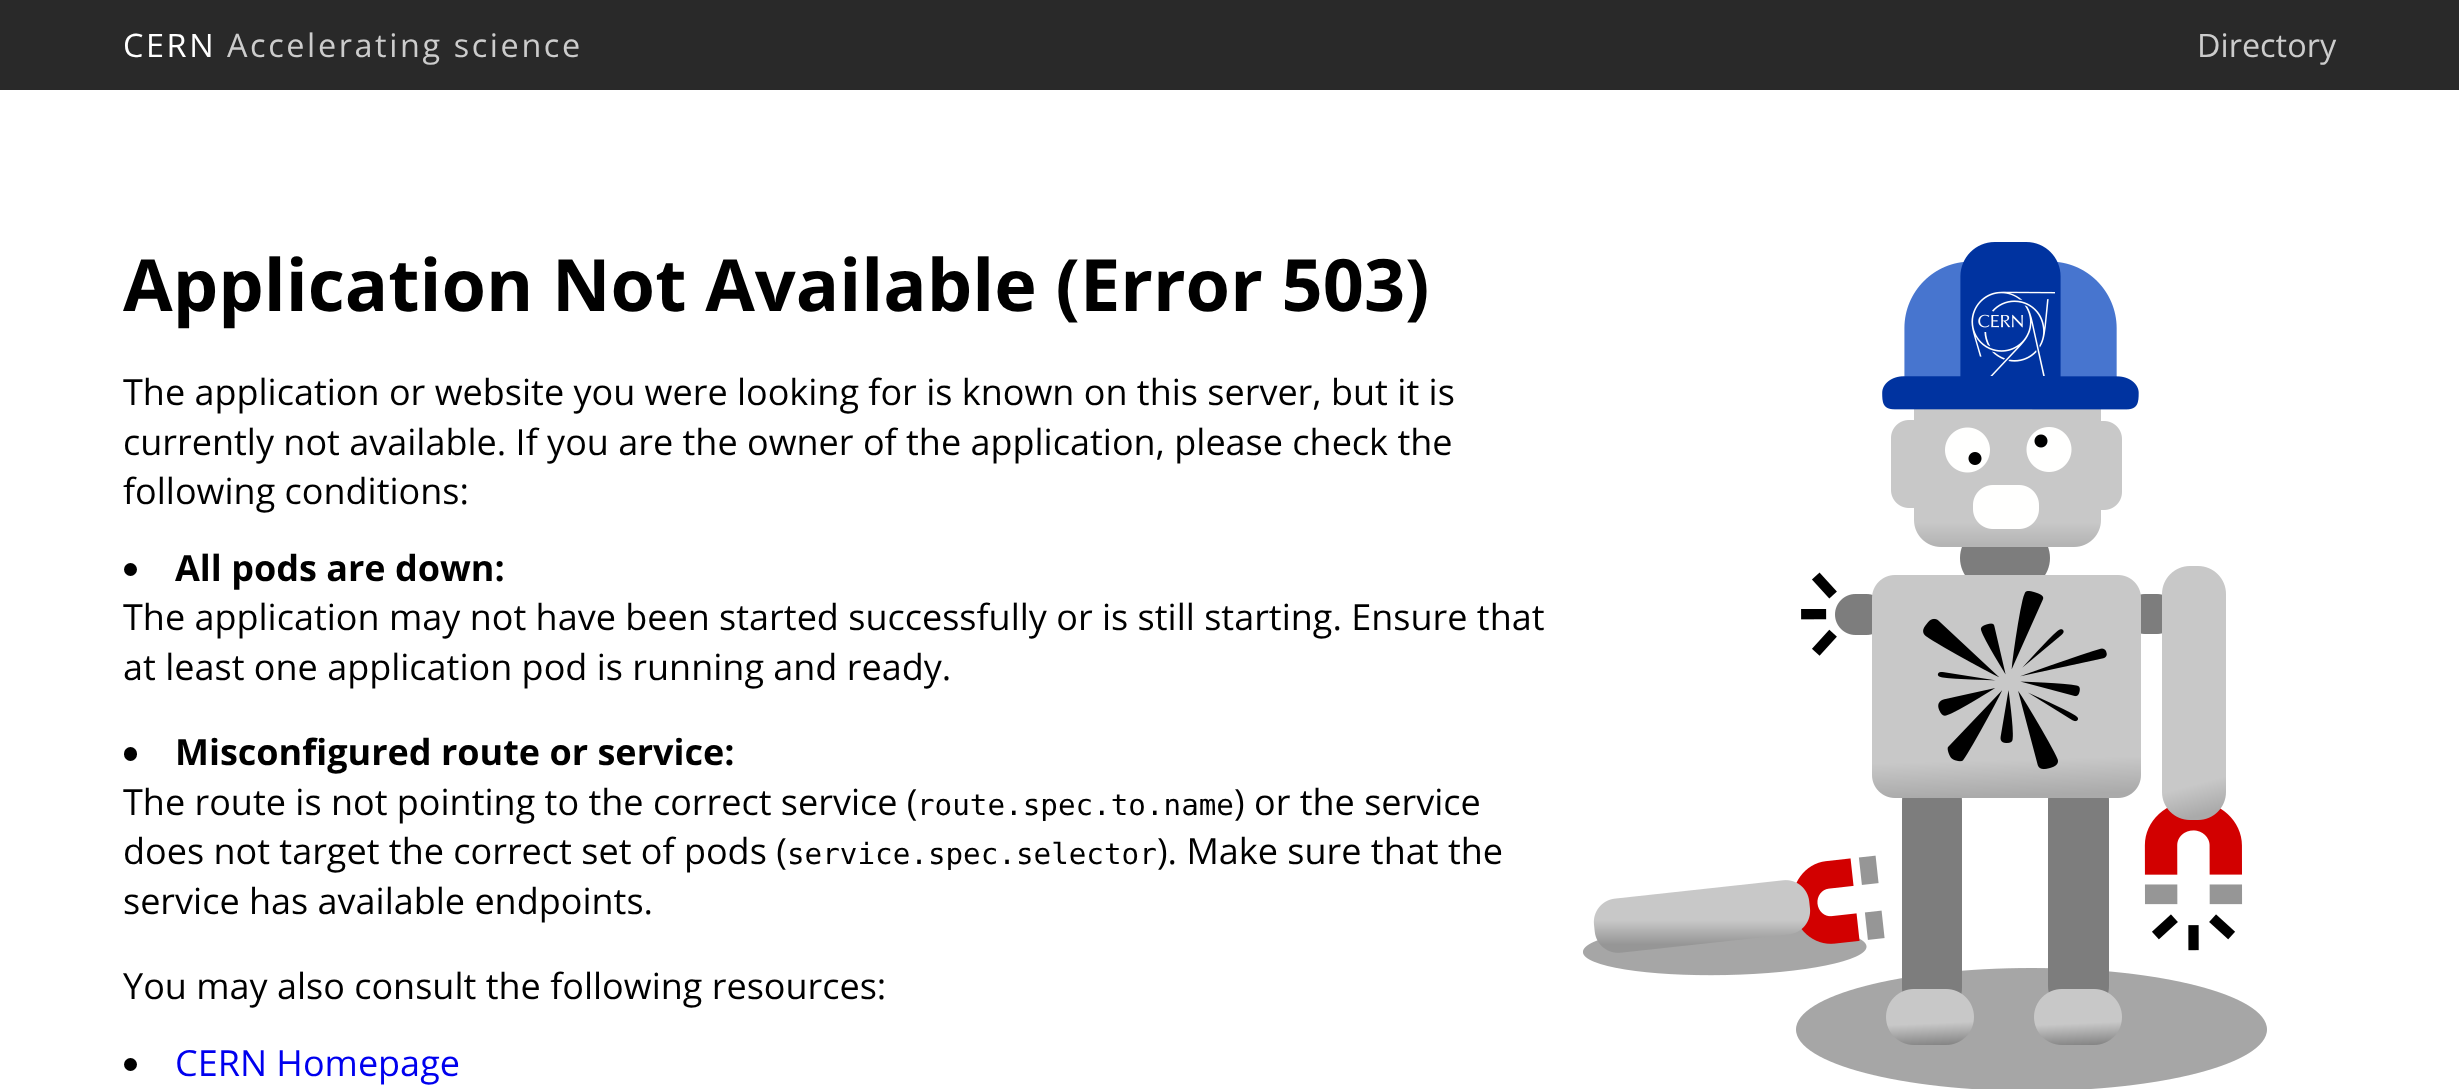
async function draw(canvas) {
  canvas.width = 2459
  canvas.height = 1089
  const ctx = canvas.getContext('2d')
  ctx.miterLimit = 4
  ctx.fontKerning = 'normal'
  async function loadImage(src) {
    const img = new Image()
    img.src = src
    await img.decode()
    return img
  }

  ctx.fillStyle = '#fff'
  ctx.fillRect(0, 0, 2459, 1089)
  ctx.fillStyle = '#292929'
  ctx.fillRect(0, 0, 2459, 90)
  ctx.letterSpacing = '2.6px'
  ctx.font = '32.4px Open Sans'
  ctx.fillStyle = '#fff'
  ctx.fillText('CERN', 123, 57)
  ctx.fillStyle = '#ccc'
  ctx.fillText('Accelerating science', 227, 57)
  ctx.letterSpacing = '0px'
  ctx.fillText('Directory', 2197, 57)
  ctx.font = 'bold 72px Open Sans'
  ctx.fillStyle = '#000'
  ctx.fillText('Application Not Available (Error 503)', 123, 311)
  ctx.font = '36px Open Sans'
  ctx.fillText('The application or website you were looking for is known on this server, but it is', 123, 405)
  ctx.fillText('currently not available. If you are the owner of the application, please check the', 123, 455)
  ctx.fillText('following conditions:', 123, 504)
  ctx.beginPath()
  ctx.arc(130.5, 569.5, 6.5, 0, 2 * Math.PI)
  ctx.fill()
  ctx.font = 'bold 36px Open Sans'
  ctx.fillText('All pods are down:', 175, 581)
  ctx.font = '36px Open Sans'
  ctx.fillText('The application may not have been started successfully or is still starting. Ensure that', 123, 630)
  ctx.fillText('at least one application pod is running and ready.', 123, 680)
  ctx.beginPath()
  ctx.roundRect(124, 747, 13, 14, 6.5)
  ctx.fill()
  ctx.font = 'bold 36px Open Sans'
  ctx.fillText('Misconfigured route or service:', 175, 765)
  ctx.font = '36px Open Sans'
  ctx.fillText('The route is not pointing to the correct service (', 123, 815)
  ctx.font = '29.25px DejaVu Sans Mono'
  ctx.fillText('route.spec.to.name', 917, 815)
  ctx.font = '36px Open Sans'
  ctx.fillText(') or the service', 1234, 815)
  ctx.fillText('does not target the correct set of pods (', 123, 864)
  ctx.font = '29.25px DejaVu Sans Mono'
  ctx.fillText('service.spec.selector', 787, 864)
  ctx.font = '36px Open Sans'
  ctx.fillText('). Make sure that the', 1157, 864)
  ctx.fillText('service has available endpoints.', 123, 914)
  ctx.fillText('You may also consult the following resources:', 123, 999)
  ctx.beginPath()
  ctx.arc(130.5, 1064.5, 6.5, 0, 2 * Math.PI)
  ctx.fill()
  ctx.fillStyle = '#00e'
  ctx.fillText('CERN Homepage', 175, 1076)
  ctx.drawImage(await loadImage('image0.png'), 1583, 242, 684, 847)
}

draw(document.querySelector('canvas'))
